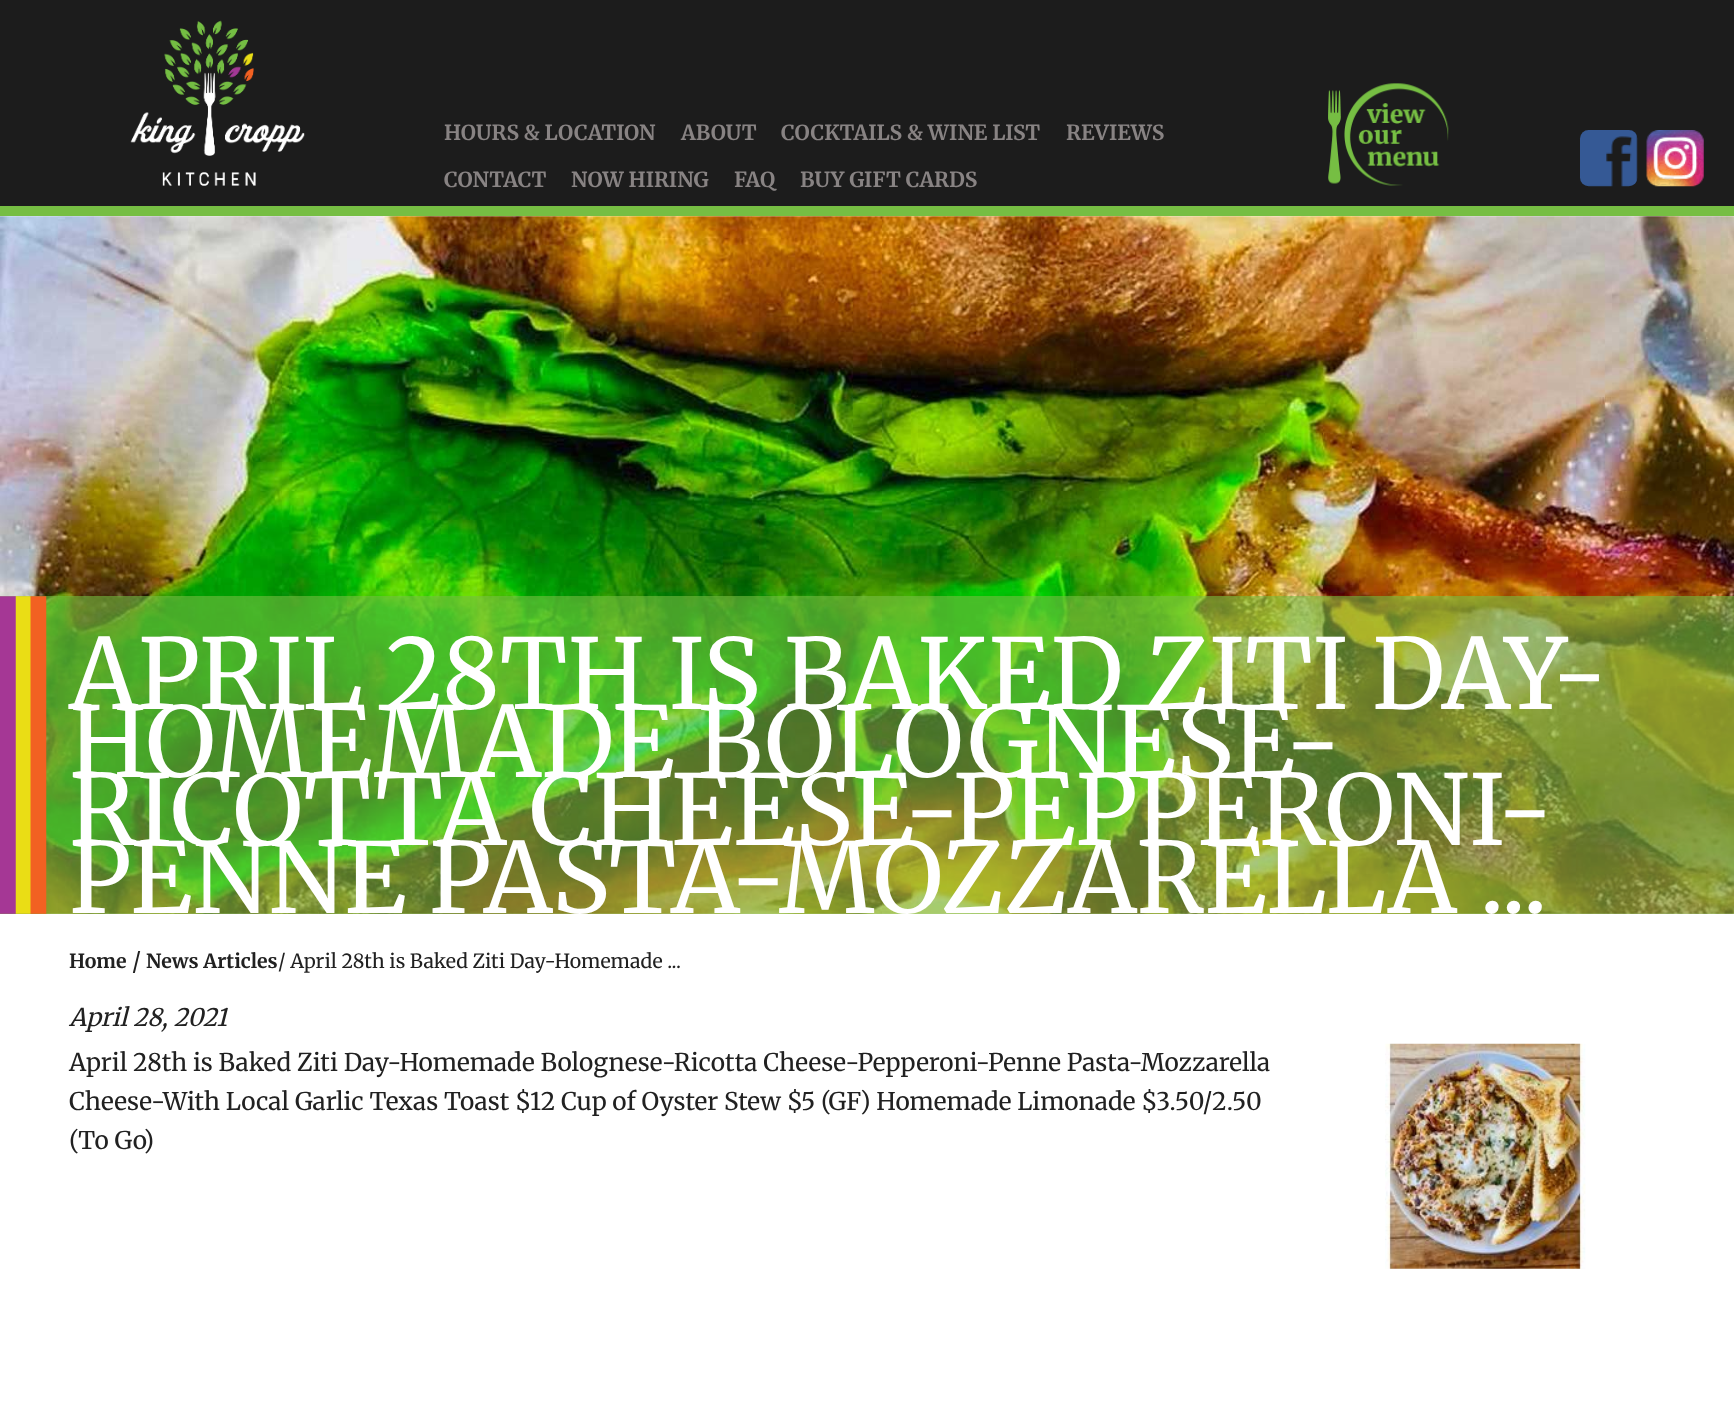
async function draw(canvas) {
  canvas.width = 1734
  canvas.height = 1401
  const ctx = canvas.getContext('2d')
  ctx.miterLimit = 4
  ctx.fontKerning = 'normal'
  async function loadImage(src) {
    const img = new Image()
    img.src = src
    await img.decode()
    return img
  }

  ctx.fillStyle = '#fff'
  ctx.fillRect(0, 0, 1734, 1401)
  ctx.fillStyle = '#1c1c1c'
  ctx.fillRect(0, 0, 1734, 206)
  ctx.fillStyle = '#76be43'
  ctx.fillRect(0, 206, 1734, 10)
  ctx.drawImage(await loadImage('image0.png'), 130, 20, 175, 166)
  ctx.font = 'bold 20.75px Merriweather'
  ctx.fillStyle = '#888383'
  ctx.fillText('HOURS & LOCATION', 444, 140)
  ctx.fillText('ABOUT', 681, 140)
  ctx.fillText('COCKTAILS & WINE LIST', 781, 140)
  ctx.fillText('REVIEWS', 1066, 140)
  ctx.fillText('CONTACT', 444, 187)
  ctx.fillText('NOW HIRING', 571, 187)
  ctx.fillText('FAQ', 734, 187)
  ctx.fillText('BUY GIFT CARDS', 800, 187)
  ctx.drawImage(await loadImage('image1.png'), 1328, 83, 121, 103)
  ctx.drawImage(await loadImage('image2.png'), 1579, 130, 59, 57)
  ctx.drawImage(await loadImage('image3.png'), 1646, 130, 58, 57)
  ctx.drawImage(await loadImage('image4.png'), 0, 216, 1734, 698)
  ctx.fillStyle = '#76be4399'
  ctx.fillRect(0, 596, 1734, 318)
  ctx.drawImage(await loadImage('image5.png'), 0, 596, 47, 318)
  ctx.font = '97.2px Merriweather'
  ctx.fillStyle = '#fff'
  ctx.fillText('APRIL 28TH IS BAKED ZITI DAY-', 69, 709)
  ctx.fillText('HOMEMADE BOLOGNESE-', 69, 777)
  ctx.fillText('RICOTTA CHEESE-PEPPERONI-', 69, 845)
  ctx.fillText('PENNE PASTA-MOZZARELLA ...', 69, 913)
  ctx.font = 'bold 19.5px Merriweather'
  ctx.fillStyle = '#212121'
  ctx.fillText('Home', 69, 968)
  ctx.font = '23px Merriweather'
  ctx.fillText('/', 132, 969)
  ctx.font = 'bold 19.5px Merriweather'
  ctx.fillText('News Articles', 146, 968)
  ctx.font = '19.5px Merriweather'
  ctx.fillText('/ April 28th is Baked Ziti Day-Homemade ...', 278, 968)
  ctx.font = 'italic 24.4px Merriweather'
  ctx.fillText('April 28, 2021', 69, 1026)
  ctx.font = '24.4px Merriweather'
  ctx.fillText('April 28th is Baked Ziti Day-Homemade Bolognese-Ricotta Cheese-Pepperoni-Penne Pasta-Mozzarella', 69, 1071)
  ctx.fillText('Cheese-With Local Garlic Texas Toast $12 Cup of Oyster Stew $5 (GF) Homemade Limonade $3.50/2.50', 69, 1110)
  ctx.fillText('(To Go)', 69, 1149)
  ctx.drawImage(await loadImage('image6.png'), 1385, 1043, 201, 226)
}

draw(document.querySelector('canvas'))
